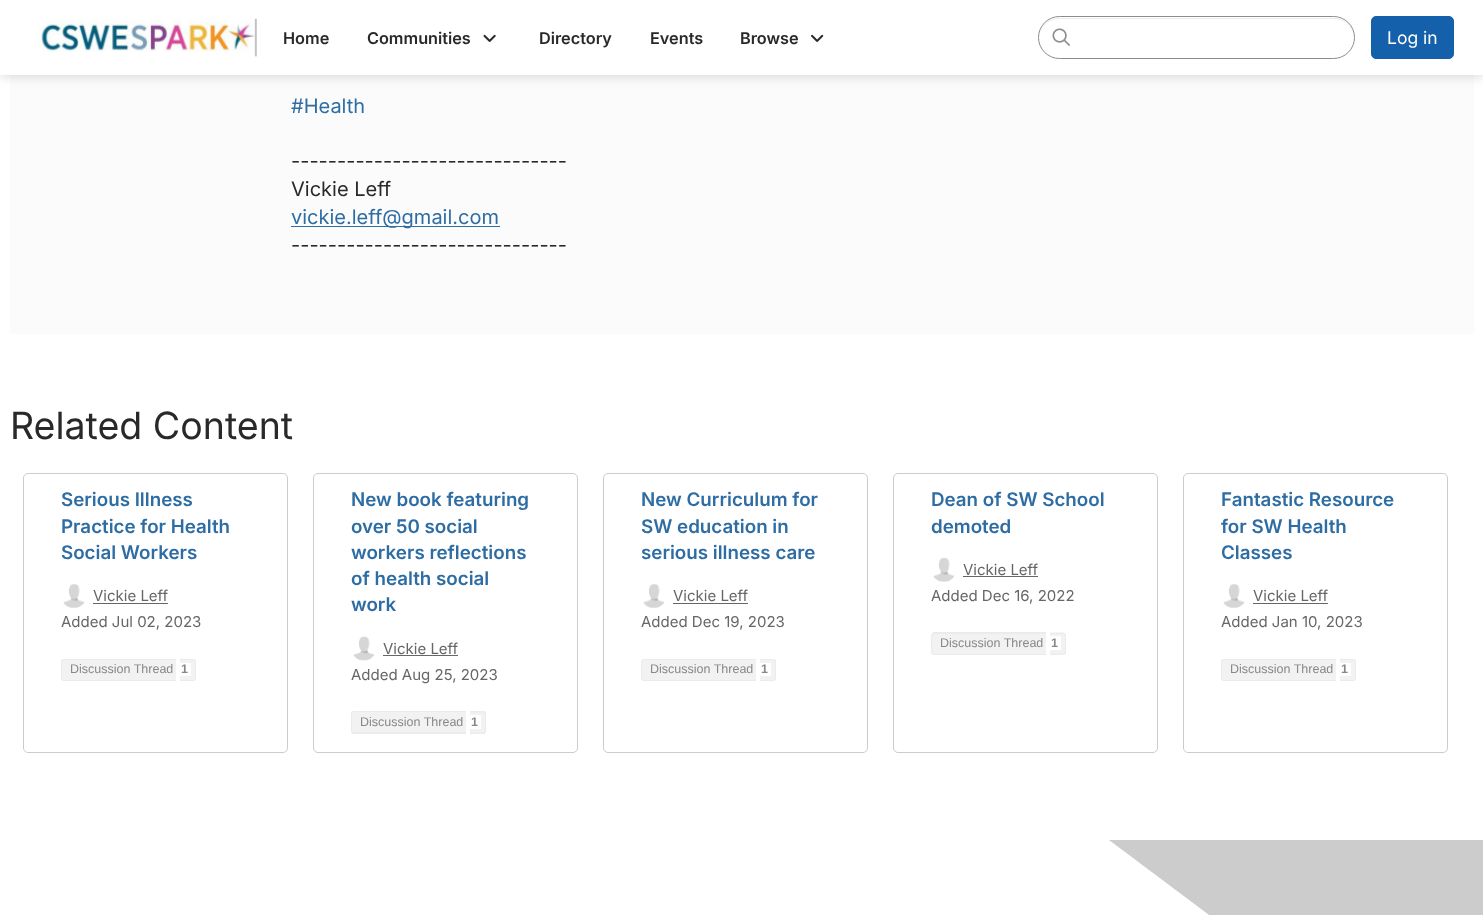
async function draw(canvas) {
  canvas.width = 1483
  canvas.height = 915
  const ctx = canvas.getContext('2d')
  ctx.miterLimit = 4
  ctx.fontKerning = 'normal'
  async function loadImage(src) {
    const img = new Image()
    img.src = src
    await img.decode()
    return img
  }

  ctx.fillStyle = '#fff'
  ctx.fillRect(0, 0, 1483, 915)
  ctx.fillStyle = '#fbfbfb'
  ctx.fillRect(10, 75, 1464, 259)
  ctx.fillStyle = '#8387913d'
  ctx.filter = 'blur(5px)'
  ctx.beginPath()
  ctx.rect(0, 3, 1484, 75)
  ctx.fill()
  ctx.filter = 'none'
  ctx.fillStyle = '#fff'
  ctx.fillRect(0, 0, 1483, 75)
  ctx.drawImage(await loadImage('image0.png'), 38, 18, 219, 39)
  ctx.font = '600 16.25px Inter'
  ctx.fillStyle = '#292929'
  ctx.fillText('Home', 283, 44)
  ctx.fillText('Communities', 367, 44)
  ctx.drawImage(await loadImage('image1.png'), 483, 34, 13, 8)
  ctx.fillText('Directory', 539, 44)
  ctx.fillText('Events', 650, 44)
  ctx.fillText('Browse', 740, 44)
  ctx.drawImage(await loadImage('image2.png'), 811, 34, 13, 8)
  ctx.fillStyle = '#ececec'
  ctx.beginPath()
  ctx.moveTo(1059, 19)
  ctx.lineTo(1334, 19)
  ctx.bezierCurveTo(1345, 19, 1354, 28, 1354, 39)
  ctx.bezierCurveTo(1354, 27, 1345, 18, 1334, 18)
  ctx.lineTo(1059, 18)
  ctx.bezierCurveTo(1048, 18, 1039, 27, 1039, 39)
  ctx.bezierCurveTo(1039, 28, 1048, 19, 1059, 19)
  ctx.closePath()
  ctx.fill()
  ctx.beginPath()
  ctx.roundRect(1038.5, 16.5, 316, 42, 21)
  ctx.strokeStyle = '#8c8c8c'
  ctx.stroke()
  ctx.drawImage(await loadImage('image3.png'), 1052, 28, 18, 18)
  ctx.fillStyle = '#1460aa'
  ctx.beginPath()
  ctx.roundRect(1371.5, 16.5, 82, 42, 4.5)
  ctx.fill()
  ctx.strokeStyle = '#1460aa'
  ctx.stroke()
  ctx.font = '17.5px Inter'
  ctx.fillStyle = '#fff'
  ctx.fillText('Log in', 1387, 44)
  ctx.font = '20px Inter'
  ctx.fillStyle = '#2e6da4'
  ctx.fillText('#Health', 291, 113)
  ctx.fillStyle = '#292929'
  ctx.fillText('------------------------------', 291, 168)
  ctx.fillText('Vickie Leff', 291, 196)
  ctx.fillStyle = '#2e6da4'
  ctx.fillRect(291, 226, 209, 1)
  ctx.fillText('vickie.leff@gmail.com', 291, 224)
  ctx.fillStyle = '#292929'
  ctx.fillText('------------------------------', 291, 252)
  ctx.font = '37.5px Inter'
  ctx.fillText('Related Content', 10, 439)
  ctx.beginPath()
  ctx.roundRect(23.5, 473.5, 264, 279, 4.5)
  ctx.strokeStyle = '#ccc'
  ctx.stroke()
  ctx.font = '600 18.75px Inter'
  ctx.fillStyle = '#2e6da4'
  ctx.fillText('Serious Illness', 61, 506)
  ctx.fillText('Practice for Health', 61, 533)
  ctx.fillText('Social Workers', 61, 559)
  ctx.drawImage(await loadImage('image4.png'), 63, 584, 22, 24)
  ctx.font = '15px Inter'
  ctx.fillStyle = '#666'
  ctx.fillText('Vickie Leff', 93, 601)
  ctx.fillRect(93, 603, 75, 1)
  ctx.fillText('Added Jul 02, 2023', 61, 627)
  ctx.fillStyle = '#f2f2f2'
  ctx.beginPath()
  ctx.roundRect(61, 659, 115, 22, [3, 0, 0, 3])
  ctx.fill()
  ctx.fillStyle = '#ebebeb'
  ctx.beginPath()
  ctx.moveTo(64, 659)
  ctx.lineTo(176, 659)
  ctx.lineTo(176, 681)
  ctx.lineTo(64, 681)
  ctx.bezierCurveTo(63, 681, 61, 680, 61, 678)
  ctx.lineTo(61, 662)
  ctx.bezierCurveTo(61, 660, 63, 659, 64, 659)
  ctx.closePath()
  ctx.moveTo(64, 660)
  ctx.lineTo(176, 660)
  ctx.lineTo(176, 680)
  ctx.lineTo(64, 680)
  ctx.bezierCurveTo(63, 680, 62, 679, 62, 678)
  ctx.lineTo(62, 662)
  ctx.bezierCurveTo(62, 661, 63, 660, 64, 660)
  ctx.closePath()
  ctx.fill('evenodd')
  ctx.font = '12.5px Liberation Sans'
  ctx.fillStyle = '#888'
  ctx.fillText('Discussion Thread', 70, 673)
  ctx.fillStyle = '#f2f2f2'
  ctx.beginPath()
  ctx.roundRect(180, 659, 16, 22, [0, 3, 3, 0])
  ctx.fill()
  ctx.fillStyle = '#ebebeb'
  ctx.beginPath()
  ctx.moveTo(180, 659)
  ctx.lineTo(193, 659)
  ctx.bezierCurveTo(195, 659, 196, 660, 196, 662)
  ctx.lineTo(196, 678)
  ctx.bezierCurveTo(196, 680, 195, 681, 193, 681)
  ctx.lineTo(180, 681)
  ctx.closePath()
  ctx.moveTo(180, 660)
  ctx.lineTo(193, 660)
  ctx.bezierCurveTo(194, 660, 195, 661, 195, 662)
  ctx.lineTo(195, 678)
  ctx.bezierCurveTo(195, 679, 194, 680, 193, 680)
  ctx.lineTo(180, 680)
  ctx.closePath()
  ctx.fill('evenodd')
  ctx.fillStyle = '#fff'
  ctx.fillRect(180, 663, 11, 13)
  ctx.font = 'bold 12.5px Liberation Sans'
  ctx.fillStyle = '#888'
  ctx.fillText('1', 181, 673)
  ctx.beginPath()
  ctx.roundRect(313.5, 473.5, 264, 279, 4.5)
  ctx.stroke()
  ctx.font = '600 18.75px Inter'
  ctx.fillStyle = '#2e6da4'
  ctx.fillText('New book featuring', 351, 506)
  ctx.fillText('over 50 social', 351, 533)
  ctx.fillText('workers reflections', 351, 559)
  ctx.fillText('of health social', 351, 585)
  ctx.fillText('work', 351, 611)
  ctx.drawImage(await loadImage('image5.png'), 353, 636, 22, 25)
  ctx.font = '15px Inter'
  ctx.fillStyle = '#666'
  ctx.fillText('Vickie Leff', 383, 654)
  ctx.fillRect(383, 655, 75, 1)
  ctx.fillText('Added Aug 25, 2023', 351, 680)
  ctx.fillStyle = '#f2f2f2'
  ctx.beginPath()
  ctx.roundRect(351, 711, 115, 23, [3, 0, 0, 3])
  ctx.fill()
  ctx.fillStyle = '#ebebeb'
  ctx.beginPath()
  ctx.moveTo(354, 711)
  ctx.lineTo(466, 711)
  ctx.lineTo(466, 734)
  ctx.lineTo(354, 734)
  ctx.bezierCurveTo(353, 734, 351, 732, 351, 731)
  ctx.lineTo(351, 714)
  ctx.bezierCurveTo(351, 713, 353, 711, 354, 711)
  ctx.closePath()
  ctx.moveTo(354, 712)
  ctx.lineTo(466, 712)
  ctx.lineTo(466, 732)
  ctx.lineTo(354, 732)
  ctx.bezierCurveTo(353, 732, 352, 732, 352, 731)
  ctx.lineTo(352, 714)
  ctx.bezierCurveTo(352, 713, 353, 712, 354, 712)
  ctx.closePath()
  ctx.fill('evenodd')
  ctx.font = '12.5px Liberation Sans'
  ctx.fillStyle = '#888'
  ctx.fillText('Discussion Thread', 360, 726)
  ctx.fillStyle = '#f2f2f2'
  ctx.beginPath()
  ctx.roundRect(470, 711, 16, 23, [0, 3, 3, 0])
  ctx.fill()
  ctx.fillStyle = '#ebebeb'
  ctx.beginPath()
  ctx.moveTo(470, 711)
  ctx.lineTo(483, 711)
  ctx.bezierCurveTo(485, 711, 486, 712.5, 486, 714.5)
  ctx.lineTo(486, 730.5)
  ctx.bezierCurveTo(486, 732.5, 485, 734, 483, 734)
  ctx.lineTo(470, 734)
  ctx.closePath()
  ctx.moveTo(470, 712.5)
  ctx.lineTo(483, 712.5)
  ctx.bezierCurveTo(484, 712.5, 485, 713.5, 485, 714.5)
  ctx.lineTo(485, 730.5)
  ctx.bezierCurveTo(485, 731.5, 484, 732.5, 483, 732.5)
  ctx.lineTo(470, 732.5)
  ctx.closePath()
  ctx.fill('evenodd')
  ctx.fillStyle = '#fff'
  ctx.fillRect(470, 715, 11, 14)
  ctx.font = 'bold 12.5px Liberation Sans'
  ctx.fillStyle = '#888'
  ctx.fillText('1', 471, 726)
  ctx.beginPath()
  ctx.roundRect(603.5, 473.5, 264, 279, 4.5)
  ctx.stroke()
  ctx.font = '600 18.75px Inter'
  ctx.fillStyle = '#2e6da4'
  ctx.fillText('New Curriculum for', 641, 506)
  ctx.fillText('SW education in', 641, 533)
  ctx.fillText('serious illness care', 641, 559)
  ctx.drawImage(await loadImage('image6.png'), 643, 584, 22, 24)
  ctx.font = '15px Inter'
  ctx.fillStyle = '#666'
  ctx.fillText('Vickie Leff', 673, 601)
  ctx.fillRect(673, 603, 75, 1)
  ctx.fillText('Added Dec 19, 2023', 641, 627)
  ctx.fillStyle = '#f2f2f2'
  ctx.beginPath()
  ctx.roundRect(641, 659, 115, 22, [3, 0, 0, 3])
  ctx.fill()
  ctx.fillStyle = '#ebebeb'
  ctx.beginPath()
  ctx.moveTo(644, 659)
  ctx.lineTo(756, 659)
  ctx.lineTo(756, 681)
  ctx.lineTo(644, 681)
  ctx.bezierCurveTo(643, 681, 641, 680, 641, 678)
  ctx.lineTo(641, 662)
  ctx.bezierCurveTo(641, 660, 643, 659, 644, 659)
  ctx.closePath()
  ctx.moveTo(644, 660)
  ctx.lineTo(756, 660)
  ctx.lineTo(756, 680)
  ctx.lineTo(644, 680)
  ctx.bezierCurveTo(643, 680, 642, 679, 642, 678)
  ctx.lineTo(642, 662)
  ctx.bezierCurveTo(642, 661, 643, 660, 644, 660)
  ctx.closePath()
  ctx.fill('evenodd')
  ctx.font = '12.5px Liberation Sans'
  ctx.fillStyle = '#888'
  ctx.fillText('Discussion Thread', 650, 673)
  ctx.fillStyle = '#f2f2f2'
  ctx.beginPath()
  ctx.roundRect(760, 659, 16, 22, [0, 3, 3, 0])
  ctx.fill()
  ctx.fillStyle = '#ebebeb'
  ctx.beginPath()
  ctx.moveTo(760, 659)
  ctx.lineTo(773, 659)
  ctx.bezierCurveTo(775, 659, 776, 660, 776, 662)
  ctx.lineTo(776, 678)
  ctx.bezierCurveTo(776, 680, 775, 681, 773, 681)
  ctx.lineTo(760, 681)
  ctx.closePath()
  ctx.moveTo(760, 660)
  ctx.lineTo(773, 660)
  ctx.bezierCurveTo(774, 660, 775, 661, 775, 662)
  ctx.lineTo(775, 678)
  ctx.bezierCurveTo(775, 679, 774, 680, 773, 680)
  ctx.lineTo(760, 680)
  ctx.closePath()
  ctx.fill('evenodd')
  ctx.fillStyle = '#fff'
  ctx.fillRect(760, 663, 11, 13)
  ctx.font = 'bold 12.5px Liberation Sans'
  ctx.fillStyle = '#888'
  ctx.fillText('1', 761, 673)
  ctx.beginPath()
  ctx.roundRect(893.5, 473.5, 264, 279, 4.5)
  ctx.stroke()
  ctx.font = '600 18.75px Inter'
  ctx.fillStyle = '#2e6da4'
  ctx.fillText('Dean of SW School', 931, 506)
  ctx.fillText('demoted', 931, 533)
  ctx.drawImage(await loadImage('image7.png'), 933, 558, 22, 24)
  ctx.font = '15px Inter'
  ctx.fillStyle = '#666'
  ctx.fillText('Vickie Leff', 963, 575)
  ctx.fillRect(963, 576, 75, 1)
  ctx.fillText('Added Dec 16, 2022', 931, 601)
  ctx.fillStyle = '#f2f2f2'
  ctx.beginPath()
  ctx.roundRect(931, 633, 115, 22, [3, 0, 0, 3])
  ctx.fill()
  ctx.fillStyle = '#ebebeb'
  ctx.beginPath()
  ctx.moveTo(934, 632)
  ctx.lineTo(1046, 632)
  ctx.lineTo(1046, 655)
  ctx.lineTo(934, 655)
  ctx.bezierCurveTo(933, 655, 931, 654, 931, 652)
  ctx.lineTo(931, 636)
  ctx.bezierCurveTo(931, 634, 933, 632, 934, 632)
  ctx.closePath()
  ctx.moveTo(934, 634)
  ctx.lineTo(1046, 634)
  ctx.lineTo(1046, 654)
  ctx.lineTo(934, 654)
  ctx.bezierCurveTo(933, 654, 932, 653, 932, 652)
  ctx.lineTo(932, 636)
  ctx.bezierCurveTo(932, 635, 933, 634, 934, 634)
  ctx.closePath()
  ctx.fill('evenodd')
  ctx.font = '12.5px Liberation Sans'
  ctx.fillStyle = '#888'
  ctx.fillText('Discussion Thread', 940, 647)
  ctx.fillStyle = '#f2f2f2'
  ctx.beginPath()
  ctx.roundRect(1050, 633, 16, 22, [0, 3, 3, 0])
  ctx.fill()
  ctx.fillStyle = '#ebebeb'
  ctx.beginPath()
  ctx.moveTo(1050, 632.5)
  ctx.lineTo(1063, 632.5)
  ctx.bezierCurveTo(1065, 632.5, 1066, 634, 1066, 635.5)
  ctx.lineTo(1066, 652)
  ctx.bezierCurveTo(1066, 653.5, 1065, 655, 1063, 655)
  ctx.lineTo(1050, 655)
  ctx.closePath()
  ctx.moveTo(1050, 634)
  ctx.lineTo(1063, 634)
  ctx.bezierCurveTo(1064, 634, 1065, 634.5, 1065, 635.5)
  ctx.lineTo(1065, 652)
  ctx.bezierCurveTo(1065, 653, 1064, 654, 1063, 654)
  ctx.lineTo(1050, 654)
  ctx.closePath()
  ctx.fill('evenodd')
  ctx.fillStyle = '#fff'
  ctx.fillRect(1050, 636, 11, 14)
  ctx.font = 'bold 12.5px Liberation Sans'
  ctx.fillStyle = '#888'
  ctx.fillText('1', 1051, 647)
  ctx.beginPath()
  ctx.roundRect(1183.5, 473.5, 264, 279, 4.5)
  ctx.stroke()
  ctx.font = '600 18.75px Inter'
  ctx.fillStyle = '#2e6da4'
  ctx.fillText('Fantastic Resource', 1221, 506)
  ctx.fillText('for SW Health', 1221, 533)
  ctx.fillText('Classes', 1221, 559)
  ctx.drawImage(await loadImage('image6.png'), 1223, 584, 22, 24)
  ctx.font = '15px Inter'
  ctx.fillStyle = '#666'
  ctx.fillText('Vickie Leff', 1253, 601)
  ctx.fillRect(1253, 603, 75, 1)
  ctx.fillText('Added Jan 10, 2023', 1221, 627)
  ctx.fillStyle = '#f2f2f2'
  ctx.beginPath()
  ctx.roundRect(1221, 659, 115, 22, [3, 0, 0, 3])
  ctx.fill()
  ctx.fillStyle = '#ebebeb'
  ctx.beginPath()
  ctx.moveTo(1224, 659)
  ctx.lineTo(1336, 659)
  ctx.lineTo(1336, 681)
  ctx.lineTo(1224, 681)
  ctx.bezierCurveTo(1223, 681, 1221, 680, 1221, 678)
  ctx.lineTo(1221, 662)
  ctx.bezierCurveTo(1221, 660, 1223, 659, 1224, 659)
  ctx.closePath()
  ctx.moveTo(1224, 660)
  ctx.lineTo(1336, 660)
  ctx.lineTo(1336, 680)
  ctx.lineTo(1224, 680)
  ctx.bezierCurveTo(1223, 680, 1222, 679, 1222, 678)
  ctx.lineTo(1222, 662)
  ctx.bezierCurveTo(1222, 661, 1223, 660, 1224, 660)
  ctx.closePath()
  ctx.fill('evenodd')
  ctx.font = '12.5px Liberation Sans'
  ctx.fillStyle = '#888'
  ctx.fillText('Discussion Thread', 1230, 673)
  ctx.fillStyle = '#f2f2f2'
  ctx.beginPath()
  ctx.roundRect(1340, 659, 16, 22, [0, 3, 3, 0])
  ctx.fill()
  ctx.fillStyle = '#ebebeb'
  ctx.beginPath()
  ctx.moveTo(1340, 659)
  ctx.lineTo(1353, 659)
  ctx.bezierCurveTo(1355, 659, 1356, 660, 1356, 662)
  ctx.lineTo(1356, 678)
  ctx.bezierCurveTo(1356, 680, 1355, 681, 1353, 681)
  ctx.lineTo(1340, 681)
  ctx.closePath()
  ctx.moveTo(1340, 660)
  ctx.lineTo(1353, 660)
  ctx.bezierCurveTo(1354, 660, 1355, 661, 1355, 662)
  ctx.lineTo(1355, 678)
  ctx.bezierCurveTo(1355, 679, 1354, 680, 1353, 680)
  ctx.lineTo(1340, 680)
  ctx.closePath()
  ctx.fill('evenodd')
  ctx.fillStyle = '#fff'
  ctx.fillRect(1340, 663, 11, 13)
  ctx.font = 'bold 12.5px Liberation Sans'
  ctx.fillStyle = '#888'
  ctx.fillText('1', 1341, 673)
  ctx.fillStyle = '#ccc'
  ctx.beginPath()
  ctx.moveTo(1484, 840)
  ctx.lineTo(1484, 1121)
  ctx.lineTo(1109, 840)
  ctx.closePath()
  ctx.fill()
}

draw(document.querySelector('canvas'))
